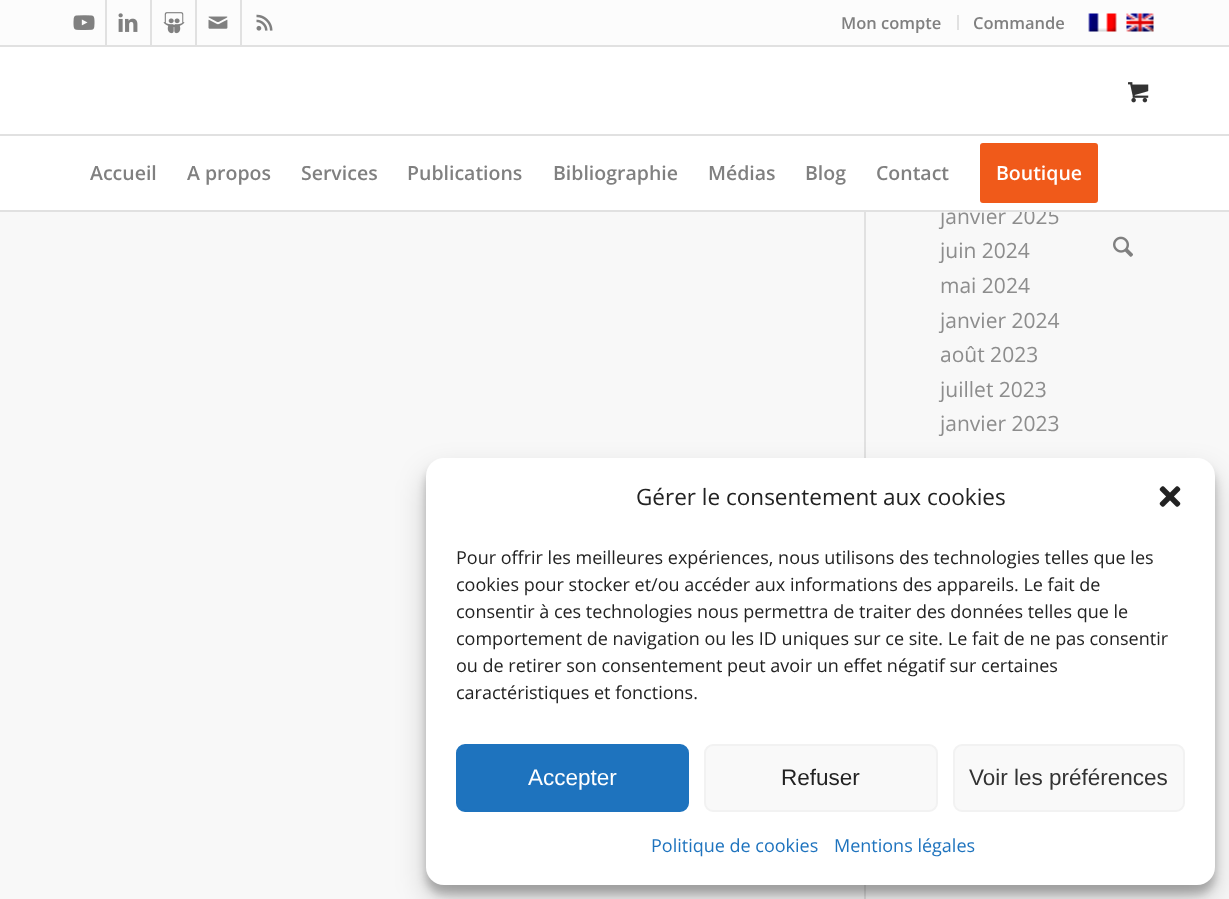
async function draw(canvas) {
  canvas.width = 1229
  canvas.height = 899
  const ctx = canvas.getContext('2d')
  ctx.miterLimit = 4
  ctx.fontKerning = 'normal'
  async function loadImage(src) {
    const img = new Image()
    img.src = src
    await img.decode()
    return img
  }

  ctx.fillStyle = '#f8f8f8'
  ctx.fillRect(0, 0, 1229, 899)
  ctx.fillStyle = '#fcfcfc'
  ctx.fillRect(0, 0, 1229, 45)
  ctx.fillStyle = '#e1e1e1'
  ctx.fillRect(0, 45, 1229, 2)
  ctx.fillRect(105, 0, 2, 45)
  ctx.drawImage(await loadImage('image0.png'), 73, 15, 22, 15)
  ctx.fillRect(150, 0, 2, 45)
  ctx.drawImage(await loadImage('image1.png'), 118, 13, 20, 19)
  ctx.fillRect(195, 0, 2, 45)
  ctx.drawImage(await loadImage('image2.png'), 163, 12, 22, 22)
  ctx.fillRect(240, 0, 2, 45)
  ctx.drawImage(await loadImage('image3.png'), 208, 16, 20, 13)
  ctx.drawImage(await loadImage('image4.png'), 256, 14, 17, 17)
  ctx.fillRect(957, 15, 2, 15)
  ctx.font = '600 16.5px Open Sans'
  ctx.fillStyle = '#808080'
  ctx.fillText('Mon compte', 841, 29)
  ctx.fillText('Commande', 973, 29)
  ctx.drawImage(await loadImage('image5.png'), 1088, 13, 29, 19)
  ctx.drawImage(await loadImage('image6.png'), 1126, 13, 28, 19)
  ctx.font = '21px Open Sans'
  ctx.fillStyle = '#8d8d8d'
  ctx.fillText('janvier 2025', 940, 224)
  ctx.fillStyle = '#fff'
  ctx.fillRect(0, 47, 1229, 163)
  ctx.fillStyle = '#e1e1e1'
  ctx.fillRect(0, 210, 1229, 2)
  ctx.drawImage(await loadImage('image7.png'), 1128, 82, 21, 21)
  ctx.fillRect(0, 134, 1229, 2)
  ctx.font = '600 19.5px Open Sans'
  ctx.fillStyle = '#808080'
  ctx.fillText('Accueil', 90, 180)
  ctx.fillText('A propos', 187, 180)
  ctx.fillText('Services', 301, 180)
  ctx.fillText('Publications', 407, 180)
  ctx.fillText('Bibliographie', 553, 180)
  ctx.fillText('Médias', 708, 180)
  ctx.fillText('Blog', 805, 180)
  ctx.fillText('Contact', 876, 180)
  ctx.fillStyle = '#f05a1a'
  ctx.beginPath()
  ctx.roundRect(981.5, 144.5, 115, 57, 1.5)
  ctx.fill()
  ctx.strokeStyle = '#f05a1a'
  ctx.lineWidth = 3
  ctx.stroke()
  ctx.fillStyle = '#fff'
  ctx.fillText('Boutique', 996, 180)
  ctx.drawImage(await loadImage('image8.png'), 1113, 236, 20, 21)
  ctx.fillStyle = '#e1e1e1'
  ctx.fillRect(864, 212, 2, 687)
  ctx.font = '21px Open Sans'
  ctx.fillStyle = '#8d8d8d'
  ctx.fillText('juin 2024', 940, 258)
  ctx.fillText('mai 2024', 940, 293)
  ctx.fillText('janvier 2024', 940, 328)
  ctx.fillText('août 2023', 940, 362)
  ctx.fillText('juillet 2023', 940, 397)
  ctx.fillText('janvier 2023', 940, 431)
  ctx.fillStyle = '#0000003b'
  ctx.filter = 'blur(4.5px)'
  ctx.beginPath()
  ctx.roundRect(426, 467, 789, 427, 18)
  ctx.fill()
  ctx.filter = 'none'
  ctx.fillStyle = '#00000030'
  ctx.filter = 'blur(15px)'
  ctx.beginPath()
  ctx.roundRect(426, 473, 789, 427, 18)
  ctx.fill()
  ctx.filter = 'none'
  ctx.fillStyle = '#fff'
  ctx.beginPath()
  ctx.roundRect(426, 458, 789, 427, 18)
  ctx.fill()
  ctx.font = '22.5px Open Sans'
  ctx.fillStyle = '#222'
  ctx.fillText('Gérer le consentement aux cookies', 636, 505)
  ctx.drawImage(await loadImage('image9.png'), 1159, 486, 22, 21)
  ctx.font = '18px Open Sans'
  ctx.fillText('Pour offrir les meilleures expériences, nous utilisons des technologies telles que les', 456, 564)
  ctx.fillText('cookies pour stocker et/ou accéder aux informations des appareils. Le fait de', 456, 591)
  ctx.fillText('consentir à ces technologies nous permettra de traiter des données telles que le', 456, 618)
  ctx.fillText('comportement de navigation ou les ID uniques sur ce site. Le fait de ne pas consentir', 456, 645)
  ctx.fillText('ou de retirer son consentement peut avoir un effet négatif sur certaines', 456, 672)
  ctx.fillText('caractéristiques et fonctions.', 456, 699)
  ctx.fillStyle = '#1e73be'
  ctx.beginPath()
  ctx.roundRect(457, 745, 231, 66, 8)
  ctx.fill()
  ctx.strokeStyle = '#1e73be'
  ctx.lineWidth = 2
  ctx.stroke()
  ctx.font = '22.5px Liberation Sans'
  ctx.fillStyle = '#fff'
  ctx.fillText('Accepter', 528, 785)
  ctx.fillStyle = '#f9f9f9'
  ctx.beginPath()
  ctx.roundRect(705, 745, 232, 66, 8)
  ctx.fill()
  ctx.strokeStyle = '#f2f2f2'
  ctx.stroke()
  ctx.fillStyle = '#222'
  ctx.fillText('Refuser', 781, 785)
  ctx.fillStyle = '#f9f9f9'
  ctx.beginPath()
  ctx.roundRect(954, 745, 230, 66, 8)
  ctx.fill()
  ctx.stroke()
  ctx.fillStyle = '#333'
  ctx.fillText('Voir les préférences', 969, 785)
  ctx.font = '18px Open Sans'
  ctx.fillStyle = '#1e73be'
  ctx.fillText('Politique de cookies', 651, 852)
  ctx.fillText('Mentions légales', 834, 852)
}

draw(document.querySelector('canvas'))
